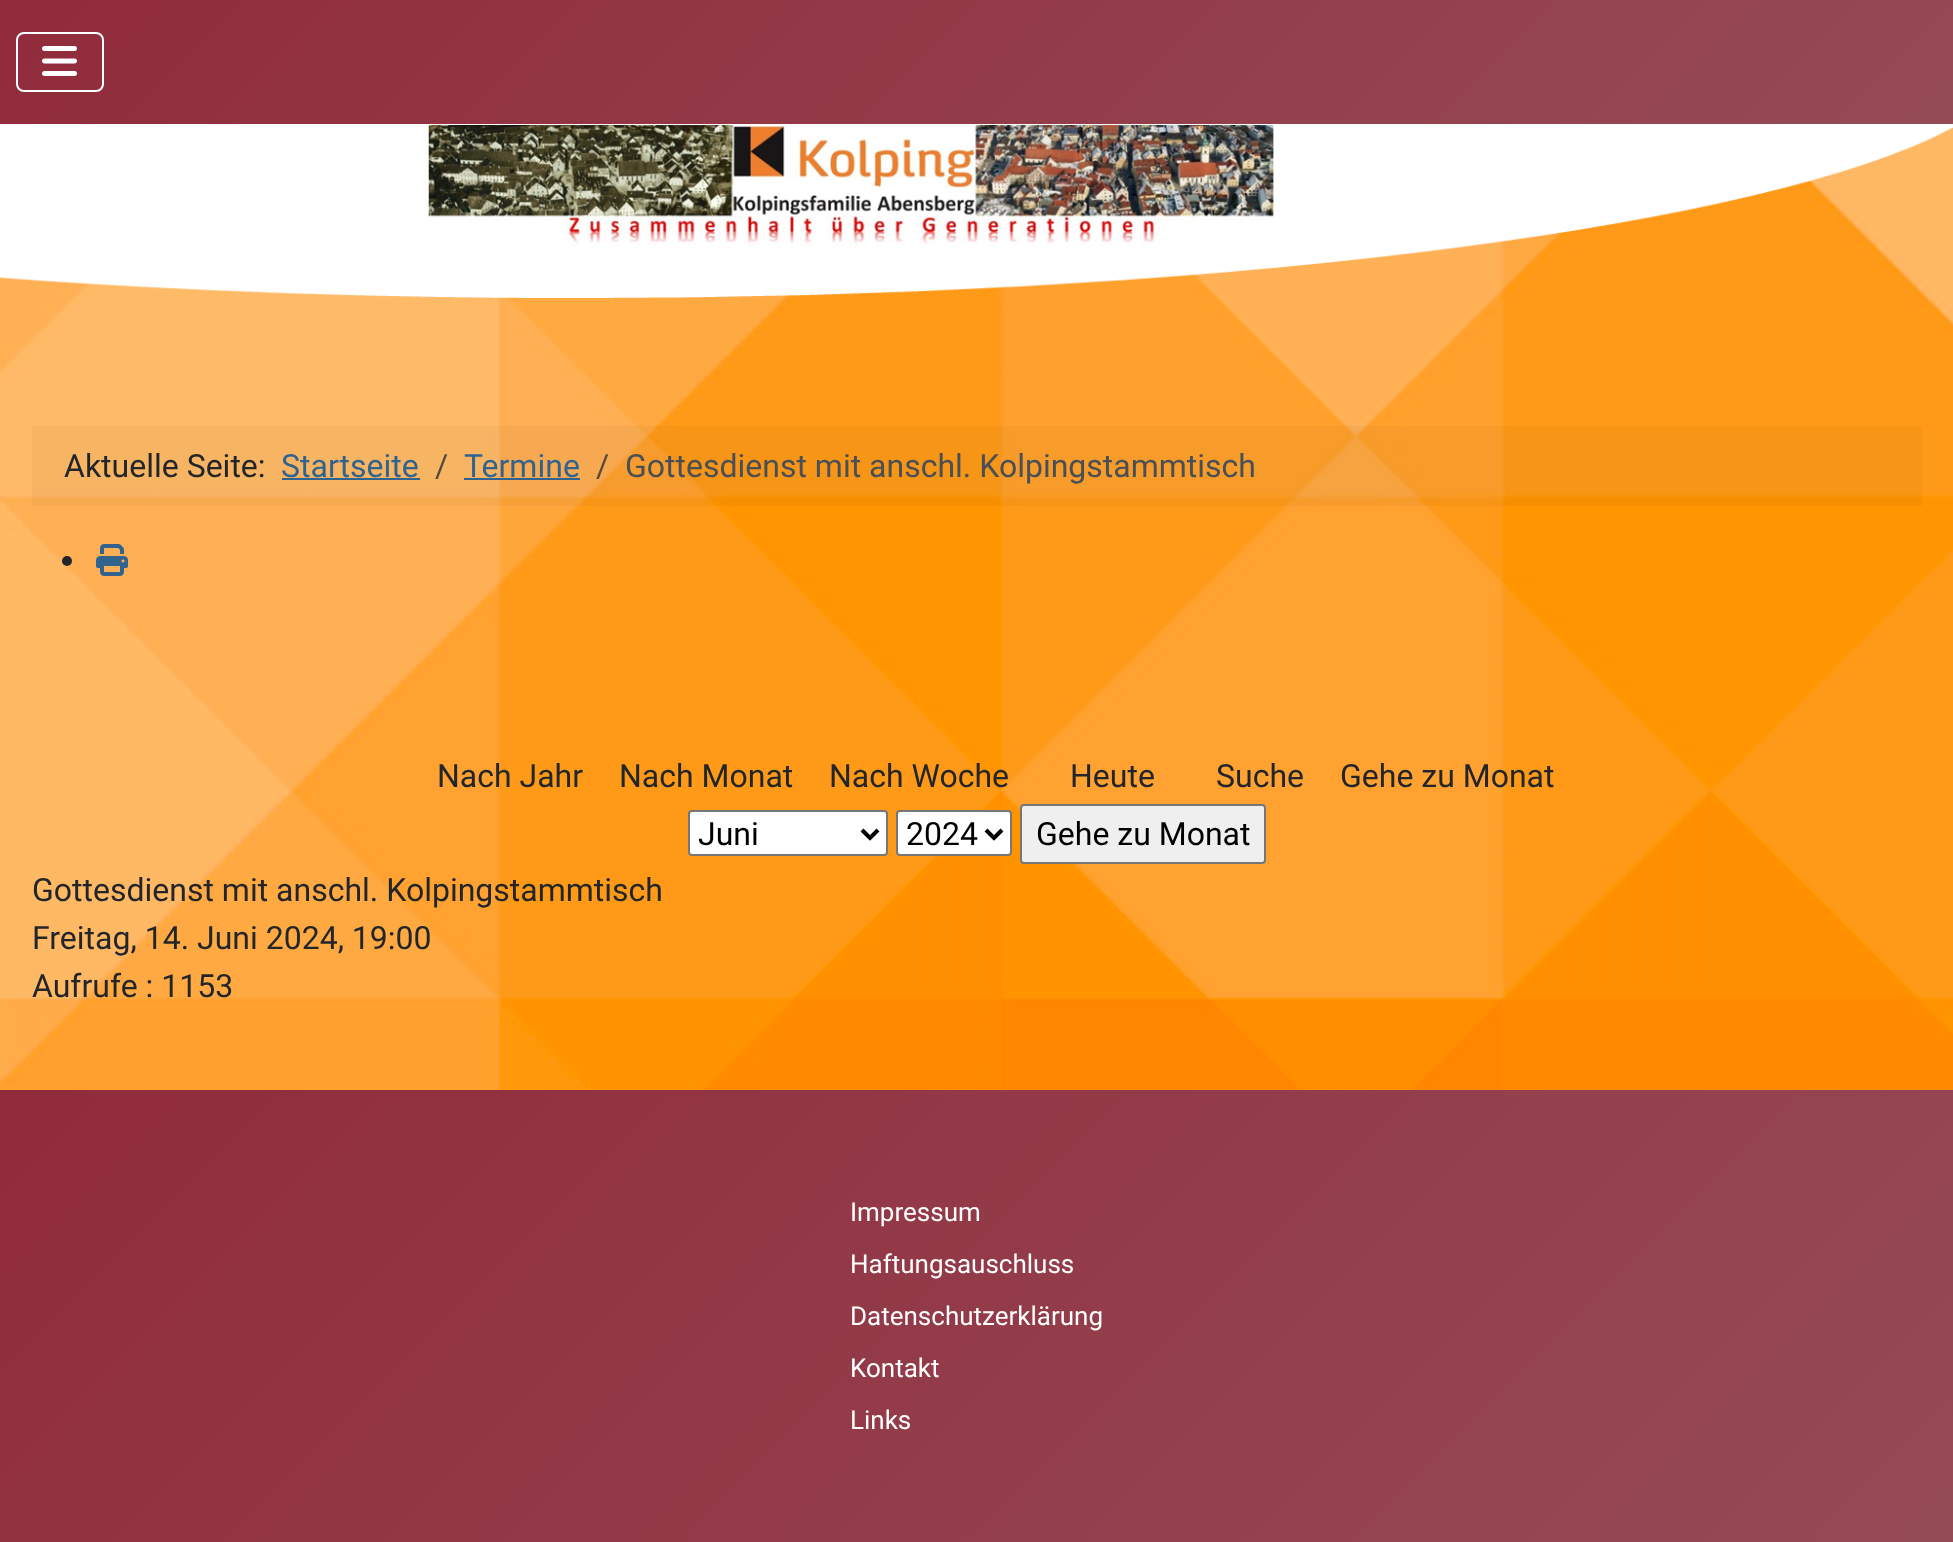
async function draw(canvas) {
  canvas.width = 1953
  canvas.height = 1542
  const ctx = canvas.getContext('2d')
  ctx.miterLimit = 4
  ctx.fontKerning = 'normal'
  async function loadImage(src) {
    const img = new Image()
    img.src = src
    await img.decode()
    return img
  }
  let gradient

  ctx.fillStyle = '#fff'
  ctx.fillRect(0, 0, 1953, 1542)
  ctx.drawImage(await loadImage('image0.png'), 0, 126, 1953, 964)
  gradient = ctx.createLinearGradient(458, -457, 1497, 582)
  gradient.addColorStop(0, '#912b3b')
  gradient.addColorStop(1, '#954b56')
  ctx.fillStyle = gradient
  ctx.fillRect(0, 0, 1953, 124)
  ctx.beginPath()
  ctx.roundRect(17, 33, 86, 58, 7)
  ctx.strokeStyle = '#fff'
  ctx.lineWidth = 2
  ctx.stroke()
  ctx.drawImage(await loadImage('image1.png'), 42, 46, 35, 30)
  ctx.drawImage(await loadImage('image2.png'), 0, 124, 1953, 174)
  ctx.fillStyle = '#00000008'
  ctx.fillRect(32, 426, 1890, 80)
  ctx.font = '32px Roboto'
  ctx.fillStyle = '#22262a'
  ctx.fillText('Aktuelle Seite:', 64, 477)
  ctx.fillStyle = '#30638d'
  ctx.fillText('Startseite', 281, 477)
  ctx.fillRect(282, 478, 138, 2)
  ctx.fillStyle = '#574a38'
  ctx.fillText('/', 435, 477)
  ctx.fillStyle = '#30638d'
  ctx.fillText('Termine', 464, 477)
  ctx.fillRect(464, 478, 116, 2)
  ctx.fillStyle = '#574a38'
  ctx.fillText('/', 596, 477)
  ctx.fillStyle = '#484f56'
  ctx.fillText('Gottesdienst mit anschl. Kolpingstammtisch', 625, 477)
  ctx.fillStyle = '#22262a'
  ctx.beginPath()
  ctx.arc(67, 561, 5, 0, 2 * Math.PI)
  ctx.fill()
  ctx.drawImage(await loadImage('image3.png'), 96, 544, 32, 32)
  ctx.fillText('Nach Jahr', 437, 787)
  ctx.fillText('Nach Monat', 619, 787)
  ctx.fillText('Nach Woche', 829, 787)
  ctx.fillText('Heute', 1070, 787)
  ctx.fillText('Suche', 1216, 787)
  ctx.fillText('Gehe zu Monat', 1340, 787)
  ctx.fillStyle = '#fff'
  ctx.beginPath()
  ctx.roundRect(689, 811, 198, 44, 3)
  ctx.fill()
  ctx.strokeStyle = '#767676'
  ctx.stroke()
  ctx.beginPath()
  ctx.moveTo(862, 830)
  ctx.lineTo(870, 838)
  ctx.lineTo(878, 830)
  ctx.strokeStyle = '#000'
  ctx.lineWidth = 4
  ctx.stroke()
  ctx.fillStyle = '#000'
  ctx.fillText('Juni', 698, 845)
  ctx.fillStyle = '#fff'
  ctx.beginPath()
  ctx.roundRect(897, 811, 114, 44, 3)
  ctx.fill()
  ctx.strokeStyle = '#767676'
  ctx.lineWidth = 2
  ctx.stroke()
  ctx.beginPath()
  ctx.moveTo(986, 830)
  ctx.lineTo(994, 838)
  ctx.lineTo(1002, 830)
  ctx.strokeStyle = '#000'
  ctx.lineWidth = 4
  ctx.stroke()
  ctx.fillStyle = '#000'
  ctx.fillText('2024', 906, 845)
  ctx.fillStyle = '#efefef'
  ctx.beginPath()
  ctx.roundRect(1021, 805, 244, 58, 3)
  ctx.fill()
  ctx.strokeStyle = '#767676'
  ctx.lineWidth = 2
  ctx.stroke()
  ctx.fillStyle = '#000'
  ctx.fillText('Gehe zu Monat', 1036, 845)
  ctx.fillStyle = '#22262a'
  ctx.fillText('Gottesdienst mit anschl. Kolpingstammtisch', 32, 901)
  ctx.fillText('Freitag, 14. Juni 2024, 19:00', 32, 949)
  ctx.fillText('Aufrufe : 1153', 32, 997)
  gradient = ctx.createLinearGradient(376, 715, 1579, 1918)
  gradient.addColorStop(0, '#912b3b')
  gradient.addColorStop(1, '#954b56')
  ctx.fillStyle = gradient
  ctx.fillRect(0, 1090, 1953, 452)
  ctx.font = '26px Roboto'
  ctx.fillStyle = '#fff'
  ctx.fillText('Impressum', 850, 1221)
  ctx.fillText('Haftungsauschluss', 850, 1273)
  ctx.fillText('Datenschutzerklärung', 850, 1325)
  ctx.fillText('Kontakt', 850, 1377)
  ctx.fillText('Links', 850, 1429)
}

draw(document.querySelector('canvas'))
